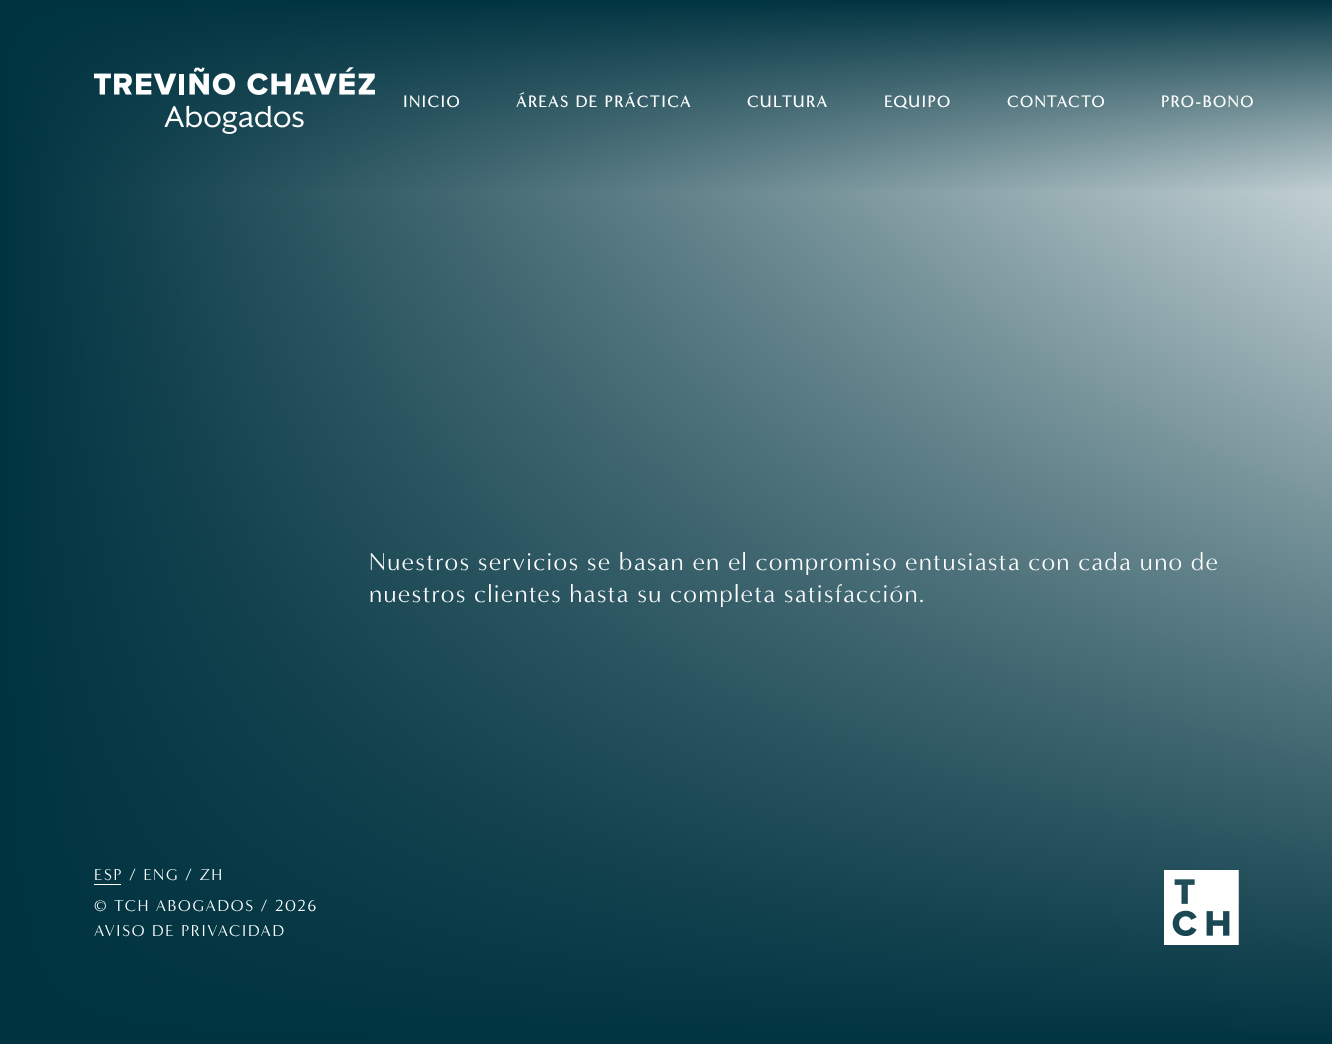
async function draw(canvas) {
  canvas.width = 1332
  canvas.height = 1044
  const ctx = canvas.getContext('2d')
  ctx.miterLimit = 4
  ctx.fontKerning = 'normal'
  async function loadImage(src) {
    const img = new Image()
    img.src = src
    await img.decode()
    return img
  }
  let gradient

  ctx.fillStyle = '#fff'
  ctx.fillRect(0, 0, 1332, 1044)
  gradient = ctx.createLinearGradient(0, 523, 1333, 522)
  gradient.addColorStop(0, '#003340')
  gradient.addColorStop(1, '#edf3f4')
  ctx.fillStyle = gradient
  ctx.fillRect(0, 1, 1332, 1038)
  gradient = ctx.createLinearGradient(666, 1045, 666, 0)
  gradient.addColorStop(0, '#003340')
  gradient.addColorStop(1, '#00334000')
  ctx.fillStyle = gradient
  ctx.fillRect(0, 23, 1332, 1021)
  gradient = ctx.createLinearGradient(666, 200, 666, -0.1)
  gradient.addColorStop(0.03, '#00334000')
  gradient.addColorStop(1, '#003340')
  ctx.fillStyle = gradient
  ctx.fillRect(0, 0, 1332, 190)
  ctx.drawImage(await loadImage('image0.png'), 94, 67, 281, 67)
  ctx.letterSpacing = '1.75px'
  ctx.font = 'bold 16.25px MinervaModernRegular'
  ctx.fillStyle = '#fff'
  ctx.fillText('INICIO', 403, 107)
  ctx.fillText('ÁREAS DE PRÁCTICA', 516, 107)
  ctx.fillText('CULTURA', 747, 107)
  ctx.fillText('EQUIPO', 884, 107)
  ctx.fillText('CONTACTO', 1007, 107)
  ctx.fillText('PRO-BONO', 1161, 107)
  ctx.letterSpacing = '1.25px'
  ctx.font = '25px MinervaModernRegular'
  ctx.fillText('Nuestros servicios se basan en el compromiso entusiasta con cada uno de', 369, 570)
  ctx.fillText('nuestros clientes hasta su completa satisfacción.', 369, 602)
  ctx.letterSpacing = '1.75px'
  ctx.font = '16.25px MinervaModernRegular'
  ctx.fillText('ESP', 94, 880)
  ctx.fillRect(94, 884, 27, 1)
  ctx.fillText('/ ENG', 129, 880)
  ctx.fillText('/ ZH', 185, 880)
  ctx.fillText('© TCH ABOGADOS / 2026', 94, 911)
  ctx.fillText('AVISO DE PRIVACIDAD', 94, 936)
  ctx.drawImage(await loadImage('image1.png'), 1164, 870, 75, 75)
}

draw(document.querySelector('canvas'))
